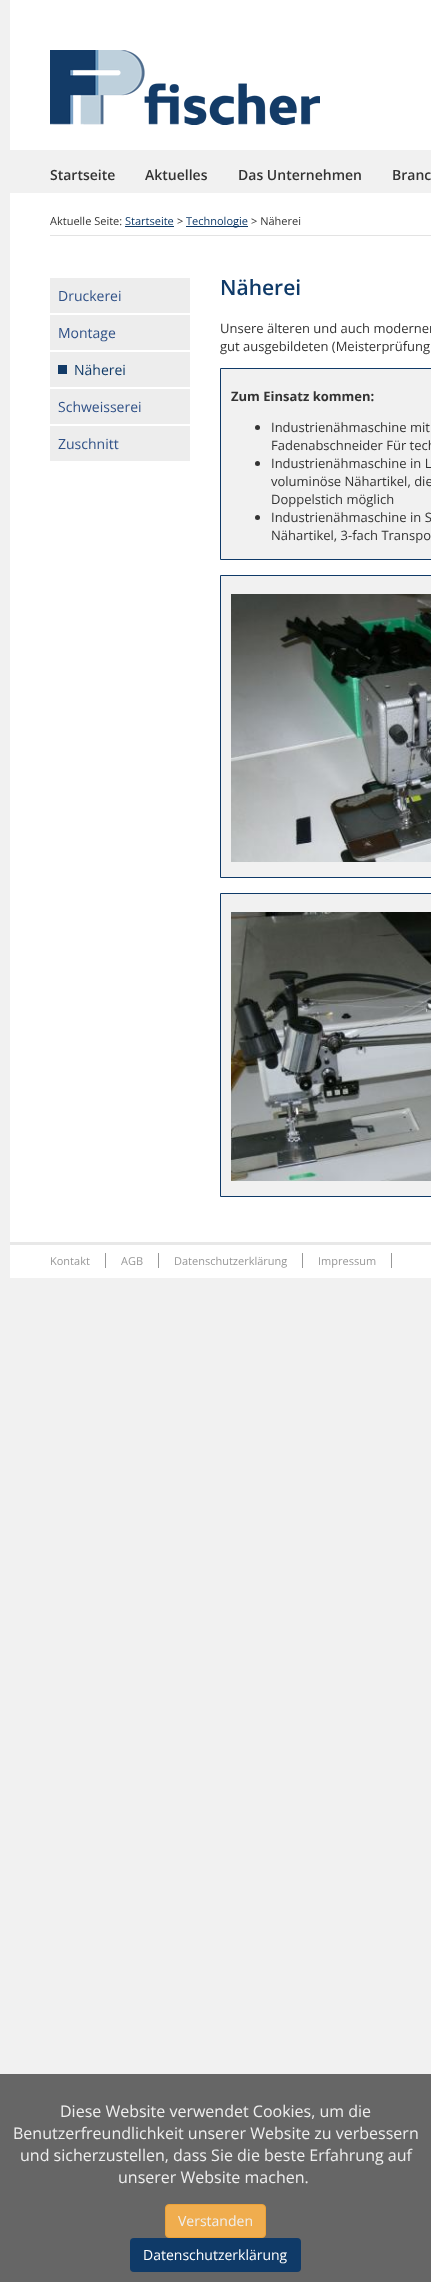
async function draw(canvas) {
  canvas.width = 431
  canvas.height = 2282
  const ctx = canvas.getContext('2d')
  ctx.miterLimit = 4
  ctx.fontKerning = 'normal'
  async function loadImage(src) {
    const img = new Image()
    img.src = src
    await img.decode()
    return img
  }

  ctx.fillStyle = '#f1f1f1'
  ctx.fillRect(0, 0, 431, 2282)
  ctx.fillStyle = '#fff'
  ctx.fillRect(10, 0, 421, 150)
  ctx.drawImage(await loadImage('image0.png'), 50, 50, 270, 75)
  ctx.font = '600 14px Open Sans'
  ctx.fillStyle = '#333'
  ctx.fillText('Startseite', 50, 180)
  ctx.fillText('Aktuelles', 145, 180)
  ctx.fillText('Das Unternehmen', 238, 180)
  ctx.fillText('Branc', 392, 180)
  ctx.fillStyle = '#fff'
  ctx.fillRect(10, 193, 421, 1085)
  ctx.fillStyle = '#e3e3e3'
  ctx.fillRect(50, 235, 381, 1)
  ctx.font = '11px Open Sans'
  ctx.fillStyle = '#333'
  ctx.fillText('Aktuelle Seite:', 50, 225)
  ctx.fillStyle = '#0f3a68'
  ctx.fillText('Startseite', 125, 225)
  ctx.fillRect(125, 226, 49, 1)
  ctx.fillStyle = '#333'
  ctx.fillText('>', 177, 225)
  ctx.fillStyle = '#0f3a68'
  ctx.fillRect(186, 226, 62, 1)
  ctx.fillText('Technologie', 186, 225)
  ctx.fillStyle = '#333'
  ctx.fillText('> Näherei', 251, 225)
  ctx.fillStyle = '#ededed'
  ctx.fillRect(50, 278, 140, 35)
  ctx.font = '14px Open Sans'
  ctx.fillStyle = '#305187'
  ctx.fillText('Druckerei', 58, 301)
  ctx.fillStyle = '#ededed'
  ctx.fillRect(50, 315, 140, 35)
  ctx.fillStyle = '#305187'
  ctx.fillText('Montage', 58, 338)
  ctx.fillStyle = '#ededed'
  ctx.fillRect(50, 352, 140, 35)
  ctx.fillStyle = '#0f3a68'
  ctx.fillText('Näherei', 74, 375)
  ctx.fillStyle = '#133b67'
  ctx.fillRect(58, 365, 9, 9)
  ctx.fillStyle = '#ededed'
  ctx.fillRect(50, 389, 140, 35)
  ctx.fillStyle = '#305187'
  ctx.fillText('Schweisserei', 58, 412)
  ctx.fillStyle = '#ededed'
  ctx.fillRect(50, 426, 140, 35)
  ctx.fillStyle = '#305187'
  ctx.fillText('Zuschnitt', 58, 449)
  ctx.font = '600 21px Open Sans'
  ctx.fillStyle = '#0f3a68'
  ctx.fillText('Näherei', 220, 295)
  ctx.font = '13px Open Sans'
  ctx.fillStyle = '#333'
  ctx.fillText('Unsere älteren und auch moderner', 220, 333)
  ctx.fillText('gut ausgebildeten (Meisterprüfung', 220, 351)
  ctx.fillStyle = '#f1f1f1'
  ctx.beginPath()
  ctx.rect(220.5, 368.5, 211, 191)
  ctx.fill()
  ctx.strokeStyle = '#0f3a68'
  ctx.stroke()
  ctx.font = 'bold 13px Open Sans'
  ctx.fillStyle = '#333'
  ctx.fillText('Zum Einsatz kommen:', 231, 401)
  ctx.beginPath()
  ctx.arc(257.5, 427.5, 2.5, 0, 2 * Math.PI)
  ctx.fill()
  ctx.font = '13px Open Sans'
  ctx.fillText('Industrienähmaschine mit', 271, 432)
  ctx.fillText('Fadenabschneider Für tech', 271, 450)
  ctx.beginPath()
  ctx.arc(257.5, 463.5, 2.5, 0, 2 * Math.PI)
  ctx.fill()
  ctx.fillText('Industrienähmaschine in L', 271, 468)
  ctx.fillText('voluminöse Nähartikel, die', 271, 486)
  ctx.fillText('Doppelstich möglich', 271, 504)
  ctx.beginPath()
  ctx.arc(257.5, 517.5, 2.5, 0, 2 * Math.PI)
  ctx.fill()
  ctx.fillText('Industrienähmaschine in S', 271, 522)
  ctx.fillText('Nähartikel, 3-fach Transpo', 271, 540)
  ctx.fillStyle = '#f1f1f1'
  ctx.beginPath()
  ctx.rect(220.5, 575.5, 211, 302)
  ctx.fill()
  ctx.stroke()
  ctx.drawImage(await loadImage('image1.png'), 231, 594, 200, 268)
  ctx.beginPath()
  ctx.rect(220.5, 893.5, 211, 303)
  ctx.fill()
  ctx.stroke()
  ctx.drawImage(await loadImage('image2.png'), 231, 912, 200, 269)
  ctx.fillStyle = '#e8e8e8'
  ctx.fillRect(10, 1242, 421, 3)
  ctx.fillStyle = '#989898'
  ctx.fillRect(105, 1253, 1, 15)
  ctx.font = '11px Open Sans'
  ctx.fillText('Kontakt', 50, 1265)
  ctx.fillRect(158, 1253, 1, 15)
  ctx.fillText('AGB', 121, 1265)
  ctx.fillRect(302, 1253, 1, 15)
  ctx.fillText('Datenschutzerklärung', 174, 1265)
  ctx.fillRect(391, 1253, 1, 15)
  ctx.fillText('Impressum', 318, 1265)
  ctx.fillStyle = '#666'
  ctx.fillRect(0, 2074, 431, 208)
  ctx.font = '16px Open Sans'
  ctx.fillStyle = '#efefef'
  ctx.fillText('Diese Website verwendet Cookies, um die', 60, 2117)
  ctx.fillText('Benutzerfreundlichkeit unserer Website zu verbessern', 13, 2139)
  ctx.fillText('und sicherzustellen, dass Sie die beste Erfahrung auf', 20, 2161)
  ctx.fillText('unserer Website machen.', 118, 2183)
  ctx.fillStyle = '#f0ad4e'
  ctx.beginPath()
  ctx.roundRect(165.5, 2204.5, 100, 33, 3.5)
  ctx.fill()
  ctx.strokeStyle = '#eea236'
  ctx.stroke()
  ctx.font = '14px Open Sans'
  ctx.fillStyle = '#efefef'
  ctx.fillText('Verstanden', 178, 2226)
  ctx.fillStyle = '#0f3a68'
  ctx.beginPath()
  ctx.roundRect(130, 2238, 171, 34, 4)
  ctx.fill()
  ctx.fillStyle = '#fff'
  ctx.fillText('Datenschutzerklärung', 143, 2260)
}

draw(document.querySelector('canvas'))
